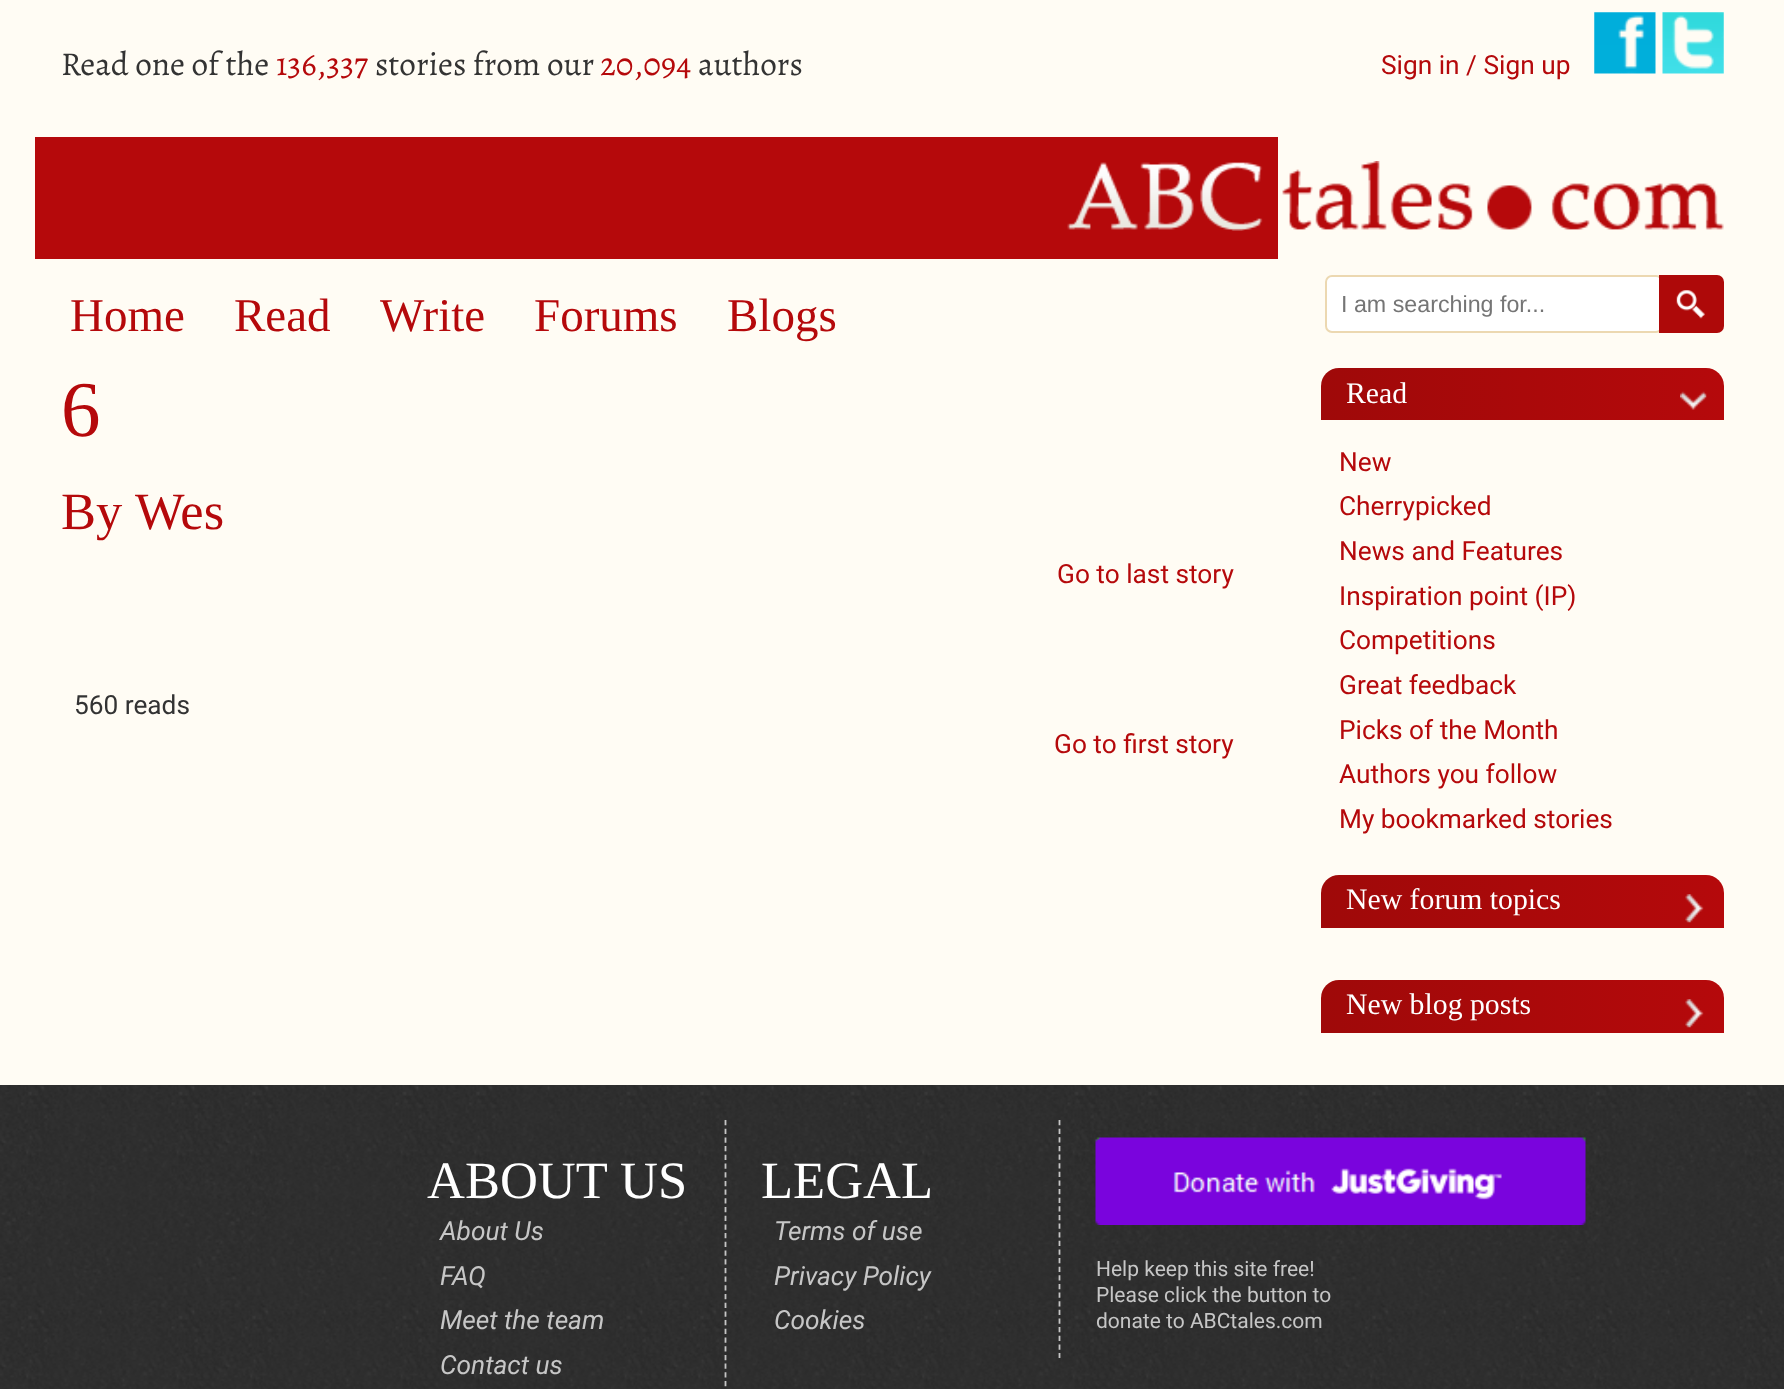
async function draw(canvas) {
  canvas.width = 1784
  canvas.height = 1389
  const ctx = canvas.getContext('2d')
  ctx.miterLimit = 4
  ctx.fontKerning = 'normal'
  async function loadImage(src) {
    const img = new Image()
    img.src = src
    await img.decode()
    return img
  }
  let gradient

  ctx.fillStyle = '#fffcf4'
  ctx.fillRect(0, 0, 1784, 1389)
  ctx.font = '33.25px Alegreya'
  ctx.fillStyle = '#333'
  ctx.fillText('Read one of the', 61, 75)
  ctx.fillStyle = '#b5090b'
  ctx.fillText('136,337', 276, 75)
  ctx.fillStyle = '#333'
  ctx.fillText('stories from our', 375, 75)
  ctx.fillStyle = '#b5090b'
  ctx.fillText('20,094', 600, 75)
  ctx.fillStyle = '#333'
  ctx.fillText('authors', 698, 75)
  ctx.font = '26.25px Roboto'
  ctx.fillStyle = '#b5090b'
  ctx.fillText('Sign in / Sign up', 1381, 74)
  ctx.drawImage(await loadImage('image0.png'), 1594, 12, 62, 62)
  ctx.drawImage(await loadImage('image1.png'), 1662, 12, 62, 62)
  ctx.fillRect(35, 137, 1243, 122)
  ctx.drawImage(await loadImage('image2.png'), 1067, 161, 657, 70)
  ctx.font = '47px Liberation Serif'
  ctx.fillText('Home', 70, 331)
  ctx.fillText('Read', 234, 331)
  ctx.fillText('Write', 380, 331)
  ctx.fillText('Forums', 534, 331)
  ctx.fillText('Blogs', 727, 331)
  ctx.font = '79px Liberation Serif'
  ctx.fillText('6', 61, 436)
  ctx.font = '52.5px Liberation Serif'
  ctx.fillText('By', 61, 529)
  ctx.fillText('Wes', 135, 529)
  ctx.font = '26.25px Roboto'
  ctx.fillText('Go to last story', 1057, 583)
  ctx.fillStyle = '#333'
  ctx.fillText('560 reads', 74, 714)
  ctx.fillStyle = '#b5090b'
  ctx.fillText('Go to first story', 1054, 753)
  ctx.fillStyle = '#fff'
  ctx.beginPath()
  ctx.roundRect(1326, 276, 336, 56, 6)
  ctx.fill()
  ctx.strokeStyle = '#ecd8b1'
  ctx.lineWidth = 2
  ctx.stroke()
  ctx.font = '23.25px Liberation Sans'
  ctx.fillStyle = '#757575'
  ctx.fillText('I am searching for...', 1341, 312)
  ctx.fillStyle = '#ae0909'
  ctx.beginPath()
  ctx.roundRect(1659, 275, 65, 58, [0, 7, 7, 0])
  ctx.fill()
  ctx.drawImage(await loadImage('image3.png'), 1676, 290, 29, 29)
  gradient = ctx.createLinearGradient(1321, 394, 1724, 394)
  gradient.addColorStop(0, '#9f0909')
  gradient.addColorStop(1, '#b5090b')
  ctx.fillStyle = gradient
  ctx.beginPath()
  ctx.roundRect(1321, 368, 403, 52, [18, 18, 0, 0])
  ctx.fill()
  ctx.font = '29.75px Liberation Serif'
  ctx.fillStyle = '#fff'
  ctx.fillText('Read', 1346, 403)
  ctx.drawImage(await loadImage('image4.png'), 1680, 391, 27, 19)
  ctx.font = '26.25px Roboto'
  ctx.fillStyle = '#b5090b'
  ctx.fillText('New', 1339, 471)
  ctx.fillText('Cherrypicked', 1339, 515)
  ctx.fillText('News and Features', 1339, 560)
  ctx.fillText('Inspiration point (IP)', 1339, 605)
  ctx.fillText('Competitions', 1339, 649)
  ctx.fillText('Great feedback', 1339, 694)
  ctx.fillText('Picks of the Month', 1339, 739)
  ctx.fillText('Authors you follow', 1339, 783)
  ctx.fillText('My bookmarked stories', 1339, 828)
  gradient = ctx.createLinearGradient(1321, 901, 1724, 901)
  gradient.addColorStop(0, '#9f0909')
  gradient.addColorStop(1, '#b5090b')
  ctx.fillStyle = gradient
  ctx.beginPath()
  ctx.roundRect(1321, 875, 403, 53, [18, 18, 0, 0])
  ctx.fill()
  ctx.font = '29.75px Liberation Serif'
  ctx.fillStyle = '#fff'
  ctx.fillText('New forum topics', 1346, 909)
  ctx.drawImage(await loadImage('image5.png'), 1685, 894, 19, 29)
  gradient = ctx.createLinearGradient(1321, 1006, 1724, 1006)
  gradient.addColorStop(0, '#9f0909')
  gradient.addColorStop(1, '#b5090b')
  ctx.fillStyle = gradient
  ctx.beginPath()
  ctx.roundRect(1321, 980, 403, 53, [18, 18, 0, 0])
  ctx.fill()
  ctx.fillStyle = '#fff'
  ctx.fillText('New blog posts', 1346, 1014)
  ctx.drawImage(await loadImage('image6.png'), 1685, 999, 19, 29)
  ctx.drawImage(await loadImage('image7.png'), 0, 1085, 1784, 304)
  ctx.beginPath()
  ctx.moveTo(725.5, 1120)
  ctx.lineTo(725.5, 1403.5)
  ctx.strokeStyle = '#c6c6c6'
  ctx.lineWidth = 1.8
  ctx.setLineDash([5.25, 3.45])
  ctx.stroke()
  ctx.font = '52.5px Liberation Serif'
  ctx.fillText('ABOUT US', 427, 1198)
  ctx.font = 'italic 26.25px Roboto'
  ctx.fillStyle = '#c6c6c6'
  ctx.fillText('About Us', 440, 1240)
  ctx.fillText('FAQ', 440, 1285)
  ctx.fillText('Meet the team', 440, 1329)
  ctx.fillText('Contact us', 440, 1374)
  ctx.beginPath()
  ctx.moveTo(1059.5, 1120)
  ctx.lineTo(1059.5, 1358)
  ctx.setLineDash([5.25, 3.38])
  ctx.stroke()
  ctx.font = '52.5px Liberation Serif'
  ctx.fillStyle = '#fff'
  ctx.fillText('LEGAL', 761, 1198)
  ctx.font = 'italic 26.25px Roboto'
  ctx.fillStyle = '#c6c6c6'
  ctx.fillText('Terms of use', 774, 1240)
  ctx.fillText('Privacy Policy', 774, 1285)
  ctx.fillText('Cookies', 774, 1329)
  ctx.drawImage(await loadImage('image8.png'), 1095, 1137, 491, 88)
  ctx.font = '21px Roboto'
  ctx.fillText('Help keep this site free!', 1096, 1276)
  ctx.fillText('Please click the button to', 1096, 1302)
  ctx.fillText('donate to ABCtales.com', 1096, 1328)
}

draw(document.querySelector('canvas'))
